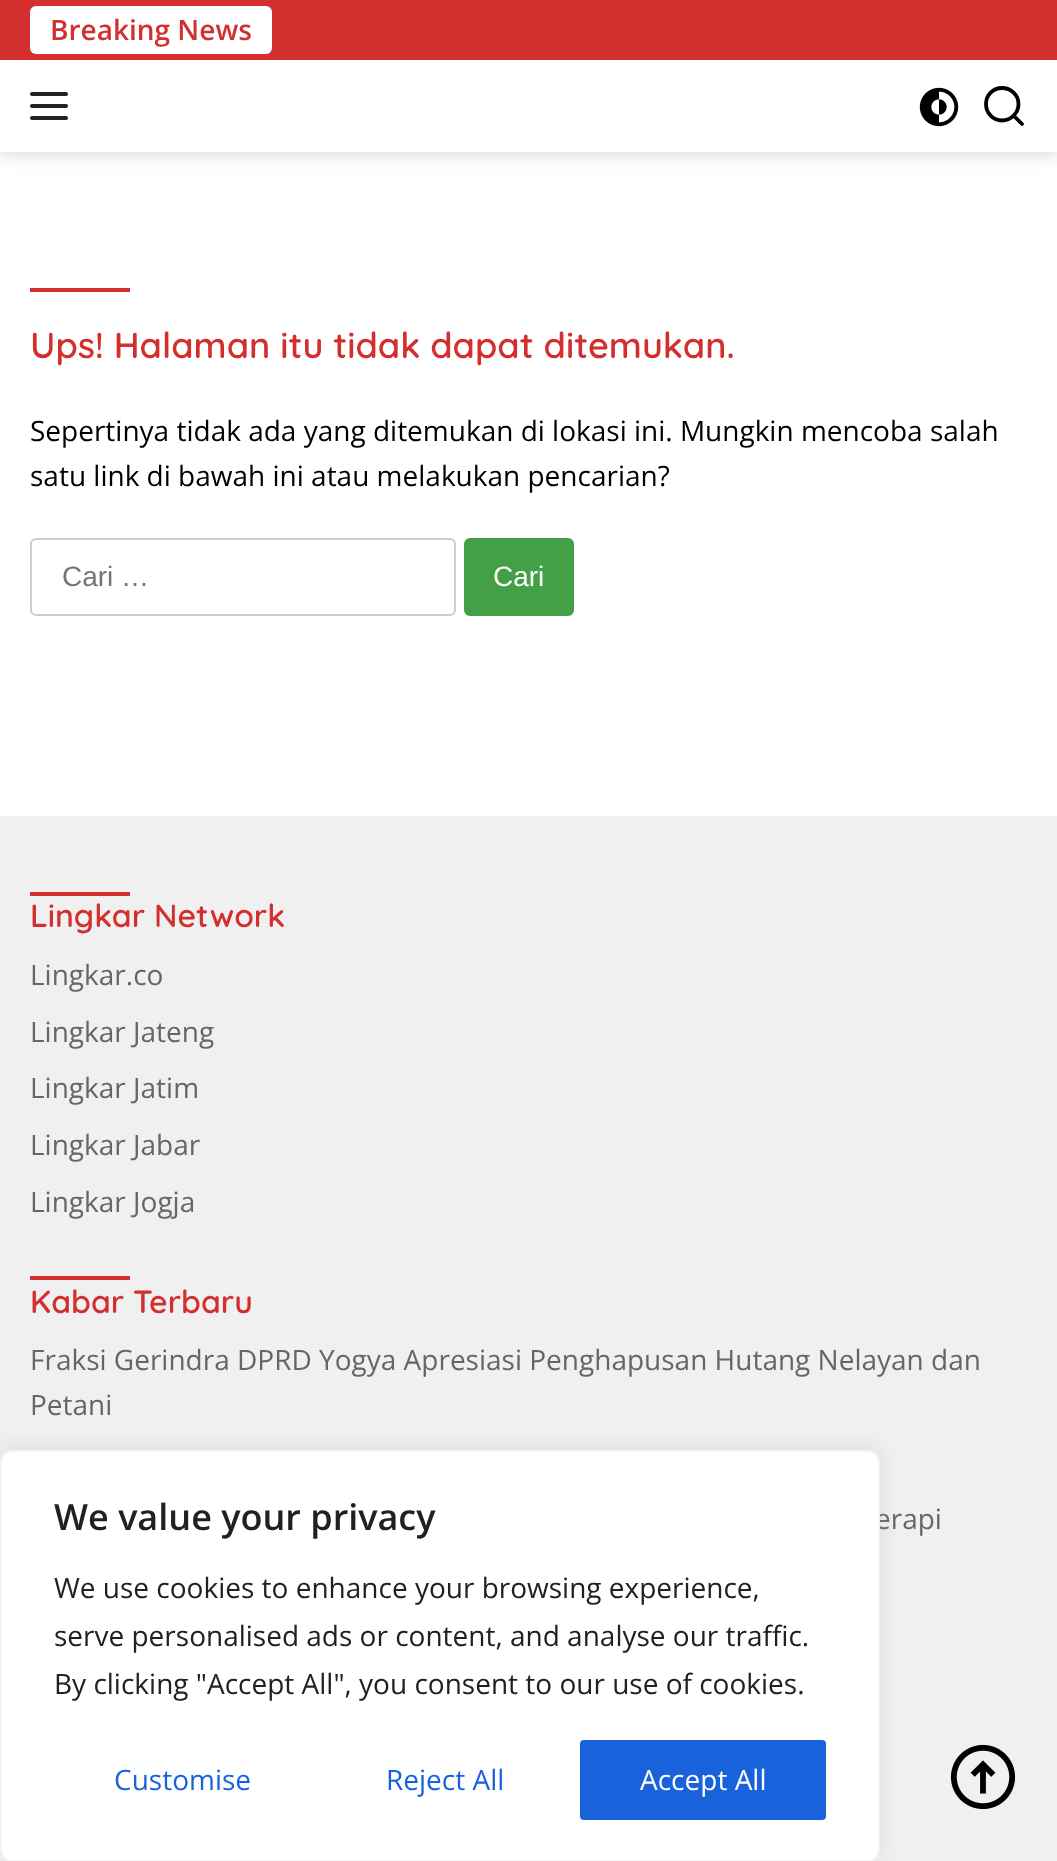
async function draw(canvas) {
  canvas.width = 1057
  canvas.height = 1861
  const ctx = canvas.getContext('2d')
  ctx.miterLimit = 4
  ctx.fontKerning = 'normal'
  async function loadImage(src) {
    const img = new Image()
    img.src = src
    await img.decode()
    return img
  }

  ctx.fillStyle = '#fff'
  ctx.fillRect(0, 0, 1057, 1861)
  ctx.fillStyle = '#00000033'
  ctx.filter = 'blur(10px)'
  ctx.beginPath()
  ctx.rect(0, 0, 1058, 152)
  ctx.fill()
  ctx.filter = 'none'
  ctx.fillStyle = '#fff'
  ctx.fillRect(0, 60, 1057, 92)
  ctx.fillStyle = '#d32f2f'
  ctx.fillRect(0, 0, 1057, 60)
  ctx.fillStyle = '#fff'
  ctx.beginPath()
  ctx.roundRect(30, 6, 242, 48, 6)
  ctx.fill()
  ctx.font = '600 28px Open Sans'
  ctx.fillStyle = '#d32f2f'
  ctx.fillText('Breaking News', 50, 40)
  ctx.fillStyle = '#222'
  ctx.beginPath()
  ctx.roundRect(30, 92, 38, 4, 2)
  ctx.fill()
  ctx.beginPath()
  ctx.roundRect(30, 104, 38, 4, 2)
  ctx.fill()
  ctx.beginPath()
  ctx.roundRect(30, 116, 38, 4, 2)
  ctx.fill()
  ctx.drawImage(await loadImage('image0.png'), 919, 87, 40, 40)
  ctx.beginPath()
  ctx.moveTo(1022, 124)
  ctx.lineTo(1013.5, 115.5)
  ctx.moveTo(1018.5, 104)
  ctx.bezierCurveTo(1018.5, 113, 1011, 120.5, 1002, 120.5)
  ctx.bezierCurveTo(993, 120.5, 986, 113, 986, 104)
  ctx.bezierCurveTo(986, 95, 993, 88, 1002, 88)
  ctx.bezierCurveTo(1011, 88, 1018.5, 95, 1018.5, 104)
  ctx.closePath()
  ctx.strokeStyle = '#000'
  ctx.lineWidth = 3.8
  ctx.lineCap = 'round'
  ctx.stroke()
  ctx.fillStyle = '#d32f2f'
  ctx.fillRect(30, 288, 100, 4)
  ctx.font = '600 36px Quicksand'
  ctx.fillText('Ups! Halaman itu tidak dapat ditemukan.', 30, 358)
  ctx.font = '28px Open Sans'
  ctx.fillStyle = '#000'
  ctx.fillText('Sepertinya tidak ada yang ditemukan di lokasi ini. Mungkin mencoba salah', 30, 441)
  ctx.fillText('satu link di bawah ini atau melakukan pencarian?', 30, 486)
  ctx.beginPath()
  ctx.roundRect(31, 539, 424, 76, 5)
  ctx.strokeStyle = '#ccc'
  ctx.lineWidth = 2
  ctx.stroke()
  ctx.font = '28px Liberation Sans'
  ctx.fillStyle = '#757575'
  ctx.fillText('Cari …', 62, 586)
  ctx.fillStyle = '#43a047'
  ctx.beginPath()
  ctx.roundRect(464, 538, 110, 78, 6)
  ctx.fill()
  ctx.fillStyle = '#fff'
  ctx.fillText('Cari', 493, 586)
  ctx.fillStyle = '#f0f0f0'
  ctx.fillRect(0, 816, 1057, 1045)
  ctx.fillStyle = '#d32f2f'
  ctx.fillRect(30, 892, 100, 4)
  ctx.font = '600 32px Quicksand'
  ctx.fillText('Lingkar Network', 30, 927)
  ctx.font = '28px Open Sans'
  ctx.fillStyle = '#666'
  ctx.fillText('Lingkar.co', 30, 985)
  ctx.fillText('Lingkar Jateng', 30, 1042)
  ctx.fillText('Lingkar Jatim', 30, 1098)
  ctx.fillText('Lingkar Jabar', 30, 1155)
  ctx.fillText('Lingkar Jogja', 30, 1212)
  ctx.fillStyle = '#d32f2f'
  ctx.fillRect(30, 1276, 100, 4)
  ctx.font = '600 32px Quicksand'
  ctx.fillText('Kabar Terbaru', 30, 1313)
  ctx.font = '28px Open Sans'
  ctx.fillStyle = '#666'
  ctx.fillText('Fraksi Gerindra DPRD Yogya Apresiasi Penghapusan Hutang Nelayan dan', 30, 1370)
  ctx.fillText('Petani', 30, 1415)
  ctx.fillText('erapi', 875, 1529)
  ctx.fillStyle = '#acabab4d'
  ctx.filter = 'blur(10px)'
  ctx.beginPath()
  ctx.roundRect(0, 1448, 880, 412, 12)
  ctx.fill()
  ctx.filter = 'none'
  ctx.fillStyle = '#fff'
  ctx.beginPath()
  ctx.roundRect(1, 1451, 878, 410, 11)
  ctx.fill()
  ctx.strokeStyle = '#f4f4f4'
  ctx.stroke()
  ctx.font = '600 36px Open Sans'
  ctx.fillStyle = '#212121'
  ctx.fillText('We value your privacy', 54, 1530)
  ctx.font = '28px Open Sans'
  ctx.fillText('We use cookies to enhance your browsing experience,', 54, 1598)
  ctx.fillText('serve personalised ads or content, and analyse our traffic.', 54, 1646)
  ctx.fillText('By clicking "Accept All", you consent to our use of cookies.', 54, 1694)
  ctx.fillStyle = '#1863dc'
  ctx.fillText('Customise', 114, 1790)
  ctx.fillText('Reject All', 386, 1790)
  ctx.beginPath()
  ctx.roundRect(580, 1740, 246, 80, 4)
  ctx.fill()
  ctx.fillStyle = '#fff'
  ctx.fillText('Accept All', 640, 1790)
  ctx.drawImage(await loadImage('image1.png'), 950, 1744, 66, 66)
}

draw(document.querySelector('canvas'))
